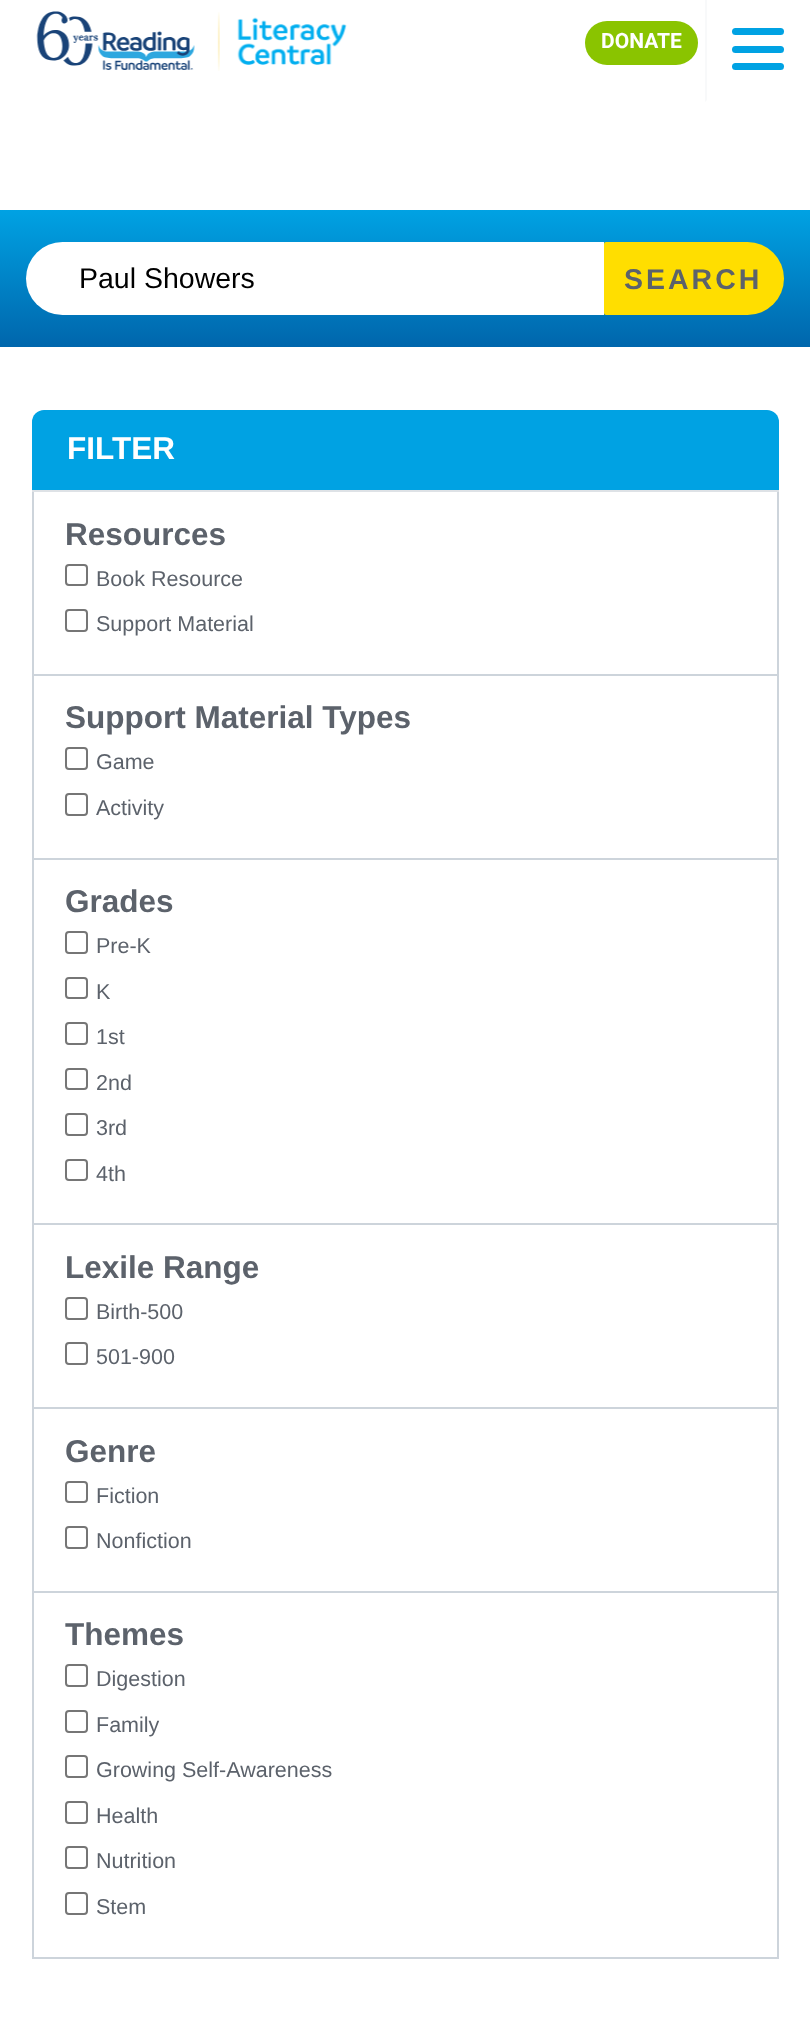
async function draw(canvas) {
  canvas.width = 810
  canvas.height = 2022
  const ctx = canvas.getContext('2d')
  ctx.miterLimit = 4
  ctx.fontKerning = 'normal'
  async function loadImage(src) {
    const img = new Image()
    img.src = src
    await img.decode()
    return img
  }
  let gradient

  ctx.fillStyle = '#fff'
  ctx.fillRect(0, 0, 810, 2022)
  ctx.drawImage(await loadImage('image0.png'), 36, 11, 159, 59)
  ctx.drawImage(await loadImage('image1.png'), 217, 12, 3, 59)
  ctx.drawImage(await loadImage('image2.png'), 237, 17, 110, 48)
  ctx.fillStyle = '#8ac400'
  ctx.beginPath()
  ctx.roundRect(585, 21, 113, 44, 22)
  ctx.fill()
  ctx.font = 'bold 21px Roboto'
  ctx.fillStyle = '#fff'
  ctx.fillText('DONATE', 601, 48)
  ctx.fillStyle = '#f8f9fa'
  ctx.beginPath()
  ctx.moveTo(705, 102)
  ctx.lineTo(705, -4)
  ctx.lineTo(707, -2)
  ctx.lineTo(707, 100)
  ctx.closePath()
  ctx.fill()
  ctx.fillStyle = '#00a2e3'
  ctx.beginPath()
  ctx.roundRect(732, 28, 52, 7, 3.5)
  ctx.fill()
  ctx.beginPath()
  ctx.roundRect(732, 46, 52, 7, 3.5)
  ctx.fill()
  ctx.beginPath()
  ctx.roundRect(732, 63, 52, 7, 3.5)
  ctx.fill()
  gradient = ctx.createLinearGradient(405, 347, 405, 210)
  gradient.addColorStop(0, '#0066ac')
  gradient.addColorStop(1, '#00a2e3')
  ctx.fillStyle = gradient
  ctx.fillRect(0, 210, 810, 137)
  ctx.fillStyle = '#fff'
  ctx.beginPath()
  ctx.roundRect(26, 242, 578, 73, [36.5, 0, 0, 36.5])
  ctx.fill()
  ctx.font = '28.5px Liberation Sans'
  ctx.fillStyle = '#000'
  ctx.fillText('Paul Showers', 79, 288)
  ctx.fillStyle = '#ffde00'
  ctx.beginPath()
  ctx.roundRect(604, 242, 180, 73, [2, 36.5, 36.5, 2])
  ctx.fill()
  ctx.letterSpacing = '3px'
  ctx.font = 'bold 28.5px Liberation Sans'
  ctx.fillStyle = '#5c626b'
  ctx.fillText('SEARCH', 624, 289)
  ctx.fillStyle = '#00a2e3'
  ctx.beginPath()
  ctx.roundRect(32, 410, 747, 82, [12, 12, 0, 0])
  ctx.fill()
  ctx.fillStyle = '#dee2e6'
  ctx.fillRect(32, 490, 747, 2)
  ctx.letterSpacing = '0px'
  ctx.font = 'bold 31.5px Liberation Sans'
  ctx.fillStyle = '#fff'
  ctx.fillText('FILTER', 67, 459)
  ctx.fillStyle = '#cdd4db'
  ctx.fillRect(777, 492, 2, 367)
  ctx.fillRect(32, 674, 747, 2)
  ctx.fillRect(32, 492, 2, 184)
  ctx.fillStyle = '#5c626b'
  ctx.fillText('Resources', 65, 545)
  ctx.beginPath()
  ctx.roundRect(66, 565, 21, 20, 3)
  ctx.strokeStyle = '#767676'
  ctx.lineWidth = 2
  ctx.stroke()
  ctx.font = '21.5px Liberation Sans'
  ctx.fillText('Book Resource', 96, 586)
  ctx.beginPath()
  ctx.roundRect(66, 610, 21, 21, 3)
  ctx.stroke()
  ctx.fillText('Support Material', 96, 631)
  ctx.fillStyle = '#cdd4db'
  ctx.fillRect(32, 858, 747, 2)
  ctx.fillRect(32, 676, 2, 183)
  ctx.font = 'bold 31.5px Liberation Sans'
  ctx.fillStyle = '#5c626b'
  ctx.fillText('Support Material Types', 65, 728)
  ctx.beginPath()
  ctx.roundRect(66, 748, 21, 21, 3)
  ctx.stroke()
  ctx.font = '21.5px Liberation Sans'
  ctx.fillText('Game', 96, 769)
  ctx.beginPath()
  ctx.roundRect(66, 794, 21, 21, 3)
  ctx.stroke()
  ctx.fillText('Activity', 96, 815)
  ctx.fillStyle = '#cdd4db'
  ctx.fillRect(777, 859, 2, 1099)
  ctx.fillRect(32, 1223, 747, 2)
  ctx.fillRect(32, 859, 2, 366)
  ctx.font = 'bold 31.5px Liberation Sans'
  ctx.fillStyle = '#5c626b'
  ctx.fillText('Grades', 65, 912)
  ctx.beginPath()
  ctx.roundRect(66, 932, 21, 21, 3)
  ctx.stroke()
  ctx.font = '21.5px Liberation Sans'
  ctx.fillText('Pre-K', 96, 953)
  ctx.beginPath()
  ctx.roundRect(66, 978, 21, 20, 3)
  ctx.stroke()
  ctx.fillText('K', 96, 999)
  ctx.beginPath()
  ctx.roundRect(66, 1023, 21, 21, 3)
  ctx.stroke()
  ctx.fillText('1st', 96, 1044)
  ctx.beginPath()
  ctx.roundRect(66, 1069, 21, 20, 3)
  ctx.stroke()
  ctx.fillText('2nd', 96, 1090)
  ctx.beginPath()
  ctx.roundRect(66, 1114, 21, 21, 3)
  ctx.stroke()
  ctx.fillText('3rd', 96, 1135)
  ctx.beginPath()
  ctx.roundRect(66, 1160, 21, 20, 3)
  ctx.stroke()
  ctx.fillText('4th', 96, 1181)
  ctx.fillStyle = '#cdd4db'
  ctx.fillRect(32, 1407, 747, 2)
  ctx.fillRect(32, 1225, 2, 184)
  ctx.font = 'bold 31.5px Liberation Sans'
  ctx.fillStyle = '#5c626b'
  ctx.fillText('Lexile Range', 65, 1278)
  ctx.beginPath()
  ctx.roundRect(66, 1298, 21, 21, 3)
  ctx.stroke()
  ctx.font = '21.5px Liberation Sans'
  ctx.fillText('Birth-500', 96, 1319)
  ctx.beginPath()
  ctx.roundRect(66, 1343, 21, 21, 3)
  ctx.stroke()
  ctx.fillText('501-900', 96, 1364)
  ctx.fillStyle = '#cdd4db'
  ctx.fillRect(32, 1591, 747, 2)
  ctx.fillRect(32, 1409, 2, 184)
  ctx.font = 'bold 31.5px Liberation Sans'
  ctx.fillStyle = '#5c626b'
  ctx.fillText('Genre', 65, 1462)
  ctx.beginPath()
  ctx.roundRect(66, 1482, 21, 20, 3)
  ctx.stroke()
  ctx.font = '21.5px Liberation Sans'
  ctx.fillText('Fiction', 96, 1503)
  ctx.beginPath()
  ctx.roundRect(66, 1527, 21, 21, 3)
  ctx.stroke()
  ctx.fillText('Nonfiction', 96, 1548)
  ctx.fillStyle = '#cdd4db'
  ctx.fillRect(32, 1957, 747, 2)
  ctx.fillRect(32, 1593, 2, 365)
  ctx.font = 'bold 31.5px Liberation Sans'
  ctx.fillStyle = '#5c626b'
  ctx.fillText('Themes', 65, 1645)
  ctx.beginPath()
  ctx.roundRect(66, 1665, 21, 21, 3)
  ctx.stroke()
  ctx.font = '21.5px Liberation Sans'
  ctx.fillText('Digestion', 96, 1686)
  ctx.beginPath()
  ctx.roundRect(66, 1711, 21, 21, 3)
  ctx.stroke()
  ctx.fillText('Family', 96, 1732)
  ctx.beginPath()
  ctx.roundRect(66, 1756, 21, 21, 3)
  ctx.stroke()
  ctx.fillText('Growing Self-Awareness', 96, 1777)
  ctx.beginPath()
  ctx.roundRect(66, 1802, 21, 21, 3)
  ctx.stroke()
  ctx.fillText('Health', 96, 1823)
  ctx.beginPath()
  ctx.roundRect(66, 1847, 21, 21, 3)
  ctx.stroke()
  ctx.fillText('Nutrition', 96, 1868)
  ctx.beginPath()
  ctx.roundRect(66, 1893, 21, 21, 3)
  ctx.stroke()
  ctx.fillText('Stem', 96, 1914)
}

draw(document.querySelector('canvas'))
